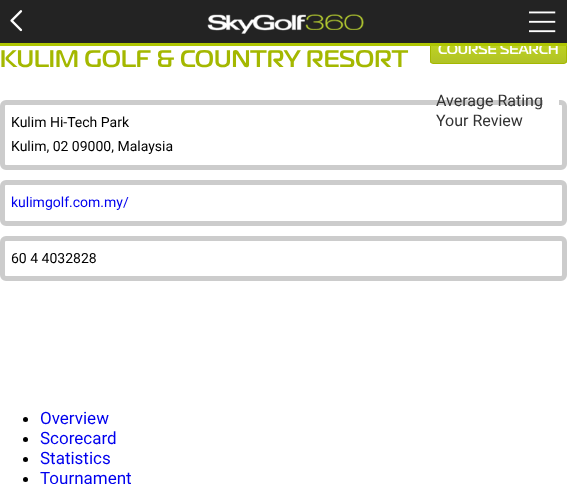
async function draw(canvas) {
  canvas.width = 567
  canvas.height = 484
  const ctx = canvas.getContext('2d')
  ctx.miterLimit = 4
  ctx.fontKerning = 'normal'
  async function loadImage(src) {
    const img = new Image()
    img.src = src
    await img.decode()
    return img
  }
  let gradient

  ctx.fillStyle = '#fff'
  ctx.fillRect(0, 0, 567, 484)
  ctx.save()
  ctx.beginPath()
  ctx.roundRect(430, 34, 137, 30, 3)
  ctx.clip()
  gradient = ctx.createLinearGradient(499, 63, 499, 35)
  gradient.addColorStop(0, '#b0c226')
  gradient.addColorStop(1, '#c6db1f')
  ctx.fillStyle = gradient
  ctx.fillRect(430, 46, 137, 17)
  ctx.restore()
  ctx.beginPath()
  ctx.roundRect(430.5, 34.5, 136, 29, 2.5)
  ctx.strokeStyle = '#a4b800'
  ctx.stroke()
  ctx.font = '500 14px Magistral'
  ctx.fillText('COURSE SEARCH', 438, 54)
  ctx.fillStyle = '#afc603'
  ctx.fillRect(0, 43, 567, 3)
  ctx.fillStyle = '#232323'
  ctx.fillRect(0, 0, 567, 43)
  ctx.drawImage(await loadImage('image0.png'), 207, 14, 157, 20)
  ctx.drawImage(await loadImage('image1.png'), 10, 10, 13, 22)
  ctx.drawImage(await loadImage('image2.png'), 529, 11, 27, 22)
  ctx.font = '500 24px Magistral'
  ctx.fillStyle = '#a4b800'
  ctx.fillText('KULIM GOLF & COUNTRY RESORT', 0, 67)
  ctx.beginPath()
  ctx.roundRect(2.5, 102.5, 562, 65, 3.5)
  ctx.strokeStyle = '#ccc'
  ctx.lineWidth = 5
  ctx.stroke()
  ctx.font = '16px Roboto'
  ctx.fillStyle = '#333'
  ctx.fillText('Average Rating', 436, 106)
  ctx.fillStyle = '#fff'
  ctx.fillRect(543, 100, 16, 5)
  ctx.fillStyle = '#333'
  ctx.fillText('Your Review', 436, 126)
  ctx.font = '14px Roboto'
  ctx.fillStyle = '#000'
  ctx.fillText('Kulim Hi-Tech Park', 11, 127)
  ctx.fillText('Kulim, 02 09000, Malaysia', 11, 151)
  ctx.beginPath()
  ctx.roundRect(2.5, 182.5, 562, 41, 3.5)
  ctx.stroke()
  ctx.fillStyle = '#00e'
  ctx.fillText('kulimgolf.com.my/', 11, 207)
  ctx.beginPath()
  ctx.roundRect(2.5, 238.5, 562, 40, 3.5)
  ctx.stroke()
  ctx.fillStyle = '#000'
  ctx.fillText('60 4 4032828', 11, 263)
  ctx.beginPath()
  ctx.arc(25.5, 419.5, 2.5, 0, 2 * Math.PI)
  ctx.fill()
  ctx.font = '17px Roboto'
  ctx.fillStyle = '#00e'
  ctx.fillText('Overview', 40, 424)
  ctx.fillStyle = '#000'
  ctx.beginPath()
  ctx.arc(25.5, 439.5, 2.5, 0, 2 * Math.PI)
  ctx.fill()
  ctx.fillStyle = '#00e'
  ctx.fillText('Scorecard', 40, 444)
  ctx.fillStyle = '#000'
  ctx.beginPath()
  ctx.arc(25.5, 459.5, 2.5, 0, 2 * Math.PI)
  ctx.fill()
  ctx.fillStyle = '#00e'
  ctx.fillText('Statistics', 40, 464)
  ctx.fillStyle = '#000'
  ctx.beginPath()
  ctx.arc(25.5, 479.5, 2.5, 0, 2 * Math.PI)
  ctx.fill()
  ctx.fillStyle = '#00e'
  ctx.fillText('Tournament', 40, 484)
}

draw(document.querySelector('canvas'))
